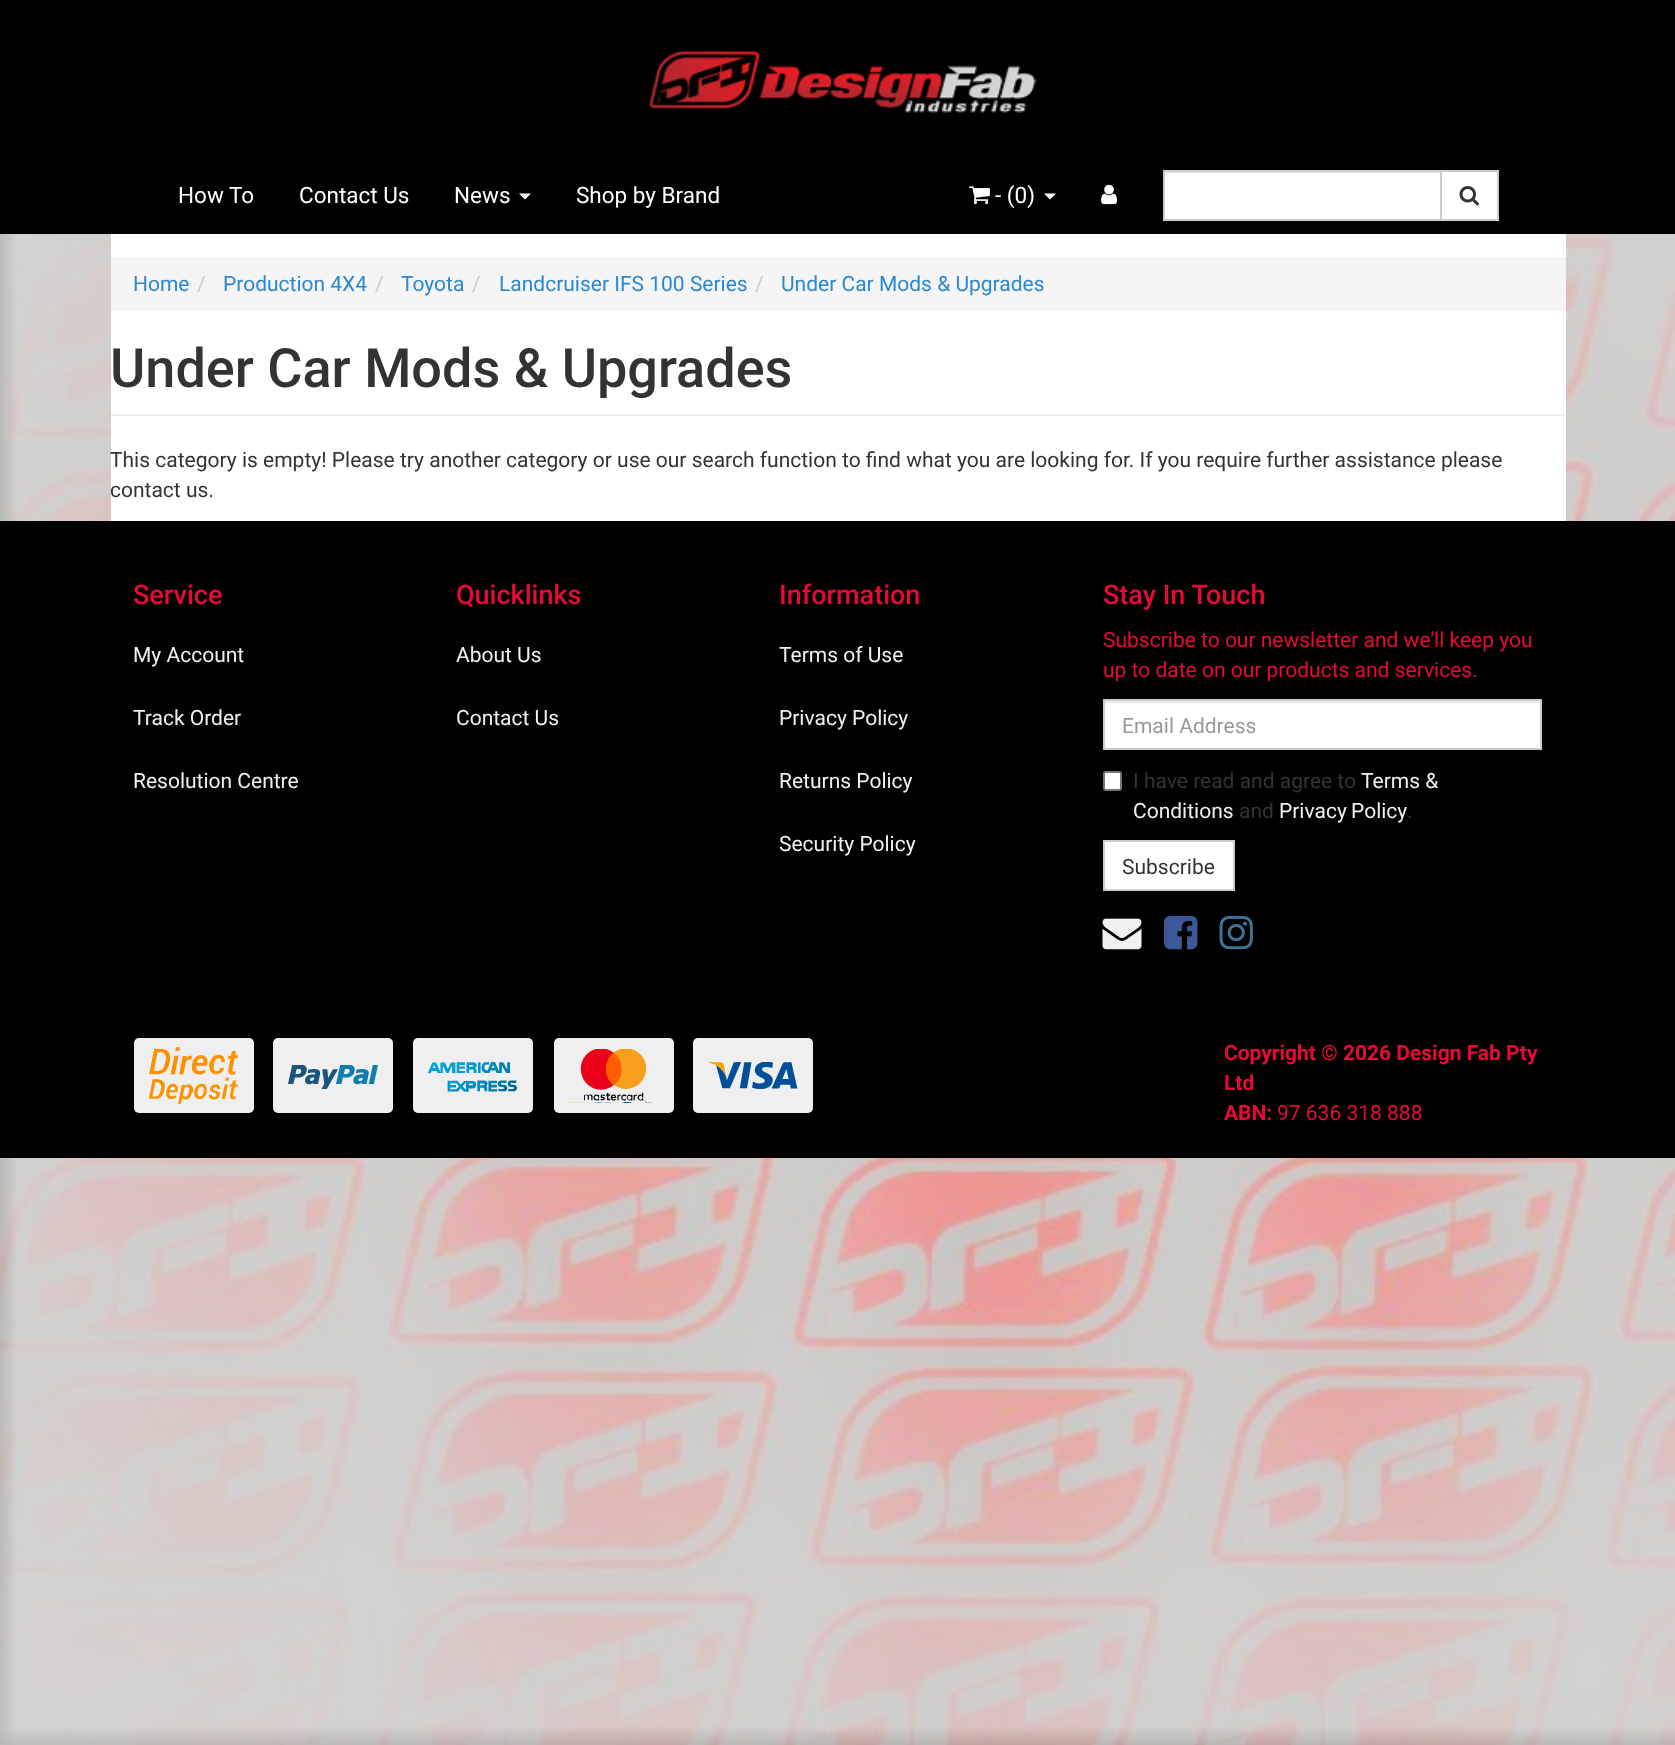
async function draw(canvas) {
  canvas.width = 1675
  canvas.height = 1745
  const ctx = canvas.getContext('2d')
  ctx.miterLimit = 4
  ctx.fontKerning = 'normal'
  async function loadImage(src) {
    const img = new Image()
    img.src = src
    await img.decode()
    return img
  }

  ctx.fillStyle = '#fff'
  ctx.fillRect(0, 0, 1675, 1745)
  ctx.drawImage(await loadImage('image0.png'), 0, 234, 1675, 1511)
  ctx.fillStyle = '#000'
  ctx.fillRect(0, 0, 1675, 234)
  ctx.drawImage(await loadImage('image1.png'), 649, 50, 388, 63)
  ctx.font = '22.5px Roboto'
  ctx.fillStyle = '#fff'
  ctx.fillText('How To', 178, 203)
  ctx.fillText('Contact Us', 299, 203)
  ctx.fillText('News', 454, 203)
  ctx.beginPath()
  ctx.moveTo(519, 193.5)
  ctx.lineTo(531, 193.5)
  ctx.lineTo(525, 199.5)
  ctx.closePath()
  ctx.fill()
  ctx.fillText('Shop by Brand', 576, 203)
  ctx.drawImage(await loadImage('image2.png'), 969, 186, 21, 19)
  ctx.fillText('- (0)', 995, 203)
  ctx.beginPath()
  ctx.moveTo(1044, 193.5)
  ctx.lineTo(1056, 193.5)
  ctx.lineTo(1050, 199.5)
  ctx.closePath()
  ctx.fill()
  ctx.drawImage(await loadImage('image3.png'), 1101, 184, 17, 21)
  ctx.fillRect(1165, 173, 275, 46)
  ctx.fillStyle = '#ececec'
  ctx.fillRect(1164, 172, 276, 1)
  ctx.strokeStyle = '#ccc'
  ctx.lineWidth = 2
  ctx.strokeRect(1164, 171, 277, 49)
  ctx.fillStyle = '#fff'
  ctx.beginPath()
  ctx.rect(1441, 171, 57, 49)
  ctx.fill()
  ctx.stroke()
  ctx.drawImage(await loadImage('image4.png'), 1459, 186, 20, 20)
  ctx.fillRect(111, 234, 1455, 287)
  ctx.fillStyle = '#f5f5f5'
  ctx.fillRect(111, 257, 1455, 54)
  ctx.font = '21px Roboto'
  ctx.fillStyle = '#2c87d1'
  ctx.fillText('Home', 133, 291)
  ctx.fillStyle = '#ccc'
  ctx.fillText('/', 197, 291)
  ctx.fillStyle = '#2c87d1'
  ctx.fillText('Production 4X4', 223, 291)
  ctx.fillStyle = '#ccc'
  ctx.fillText('/', 375, 291)
  ctx.fillStyle = '#2c87d1'
  ctx.fillText('Toyota', 401, 291)
  ctx.fillStyle = '#ccc'
  ctx.fillText('/', 472, 291)
  ctx.fillStyle = '#2c87d1'
  ctx.fillText('Landcruiser IFS 100 Series', 499, 291)
  ctx.fillStyle = '#ccc'
  ctx.fillText('/', 755, 291)
  ctx.fillStyle = '#2c87d1'
  ctx.fillText('Under Car Mods & Upgrades', 781, 291)
  ctx.fillStyle = '#eee'
  ctx.fillRect(111, 414, 1455, 2)
  ctx.font = '500 54px Roboto'
  ctx.fillStyle = '#333'
  ctx.fillText('Under Car Mods & Upgrades', 110, 387)
  ctx.font = '21px Roboto'
  ctx.fillText('This category is empty! Please try another category or use our search function to find what you are looking for. If you require further assistance please', 110, 467)
  ctx.fillText('contact us.', 110, 497)
  ctx.fillStyle = '#000'
  ctx.fillRect(0, 521, 1675, 637)
  ctx.font = '500 27px Roboto'
  ctx.fillStyle = '#e80936'
  ctx.fillText('Service', 133, 604)
  ctx.font = '21px Roboto'
  ctx.fillStyle = '#f0f0f0'
  ctx.fillText('My Account', 133, 662)
  ctx.fillText('Track Order', 133, 725)
  ctx.fillText('Resolution Centre', 133, 788)
  ctx.font = '500 27px Roboto'
  ctx.fillStyle = '#e80936'
  ctx.fillText('Quicklinks', 456, 604)
  ctx.font = '21px Roboto'
  ctx.fillStyle = '#f0f0f0'
  ctx.fillText('About Us', 456, 662)
  ctx.fillText('Contact Us', 456, 725)
  ctx.font = '500 27px Roboto'
  ctx.fillStyle = '#e80936'
  ctx.fillText('Information', 779, 604)
  ctx.font = '21px Roboto'
  ctx.fillStyle = '#f0f0f0'
  ctx.fillText('Terms of Use', 779, 662)
  ctx.fillText('Privacy Policy', 779, 725)
  ctx.fillText('Returns Policy', 779, 788)
  ctx.fillText('Security Policy', 779, 851)
  ctx.font = '500 27px Roboto'
  ctx.fillStyle = '#e80936'
  ctx.fillText('Stay In Touch', 1103, 604)
  ctx.font = '21px Roboto'
  ctx.fillText('Subscribe to our newsletter and we\'ll keep you', 1103, 647)
  ctx.fillText('up to date on our products and services.', 1103, 677)
  ctx.fillStyle = '#fff'
  ctx.fillRect(1105, 703, 435, 45)
  ctx.fillStyle = '#ececec'
  ctx.fillRect(1104, 701, 437, 2)
  ctx.strokeRect(1104, 700, 437, 49)
  ctx.fillStyle = '#999'
  ctx.fillText('Email Address', 1122, 733)
  ctx.fillStyle = '#fff'
  ctx.beginPath()
  ctx.roundRect(1104, 772, 17, 18, 2)
  ctx.fill()
  ctx.strokeStyle = '#767676'
  ctx.stroke()
  ctx.fillStyle = '#333'
  ctx.fillText('I have read and agree to', 1133, 788)
  ctx.fillStyle = '#f0f0f0'
  ctx.fillText('Terms &', 1361, 788)
  ctx.fillText('Conditions', 1133, 818)
  ctx.fillStyle = '#333'
  ctx.fillText('and', 1239, 818)
  ctx.wordSpacing = '-1px'
  ctx.fillStyle = '#f0f0f0'
  ctx.fillText('Privacy Policy', 1279, 818)
  ctx.wordSpacing = '0px'
  ctx.fillStyle = '#333'
  ctx.fillText('.', 1407, 818)
  ctx.fillStyle = '#fff'
  ctx.beginPath()
  ctx.rect(1104, 841, 130, 49)
  ctx.fill()
  ctx.strokeStyle = '#ccc'
  ctx.stroke()
  ctx.fillStyle = '#333'
  ctx.fillText('Subscribe', 1122, 874)
  ctx.drawImage(await loadImage('image5.png'), 1102, 918, 40, 32)
  ctx.drawImage(await loadImage('image6.png'), 1164, 915, 34, 35)
  ctx.drawImage(await loadImage('image7.png'), 1219, 915, 34, 35)
  ctx.fillStyle = '#efefef'
  ctx.beginPath()
  ctx.roundRect(134, 1038, 120, 75, 5)
  ctx.fill()
  ctx.drawImage(await loadImage('image8.png'), 149, 1047, 90, 57)
  ctx.beginPath()
  ctx.roundRect(273, 1038, 120, 75, 5)
  ctx.fill()
  ctx.drawImage(await loadImage('image9.png'), 288, 1065, 90, 24)
  ctx.beginPath()
  ctx.roundRect(413, 1038, 120, 75, 5)
  ctx.fill()
  ctx.drawImage(await loadImage('image10.png'), 428, 1061, 89, 31)
  ctx.beginPath()
  ctx.roundRect(554, 1038, 120, 75, 5)
  ctx.fill()
  ctx.drawImage(await loadImage('image11.png'), 569, 1049, 83, 54)
  ctx.beginPath()
  ctx.roundRect(693, 1038, 120, 75, 5)
  ctx.fill()
  ctx.drawImage(await loadImage('image12.png'), 708, 1062, 90, 27)
  ctx.font = 'bold 21px Roboto'
  ctx.fillStyle = '#e80936'
  ctx.fillText('Copyright © 2026 Design Fab Pty', 1224, 1060)
  ctx.fillText('Ltd', 1224, 1090)
  ctx.fillText('ABN:', 1224, 1120)
  ctx.font = '21px Roboto'
  ctx.fillText('97 636 318 888', 1277, 1120)
}

draw(document.querySelector('canvas'))
